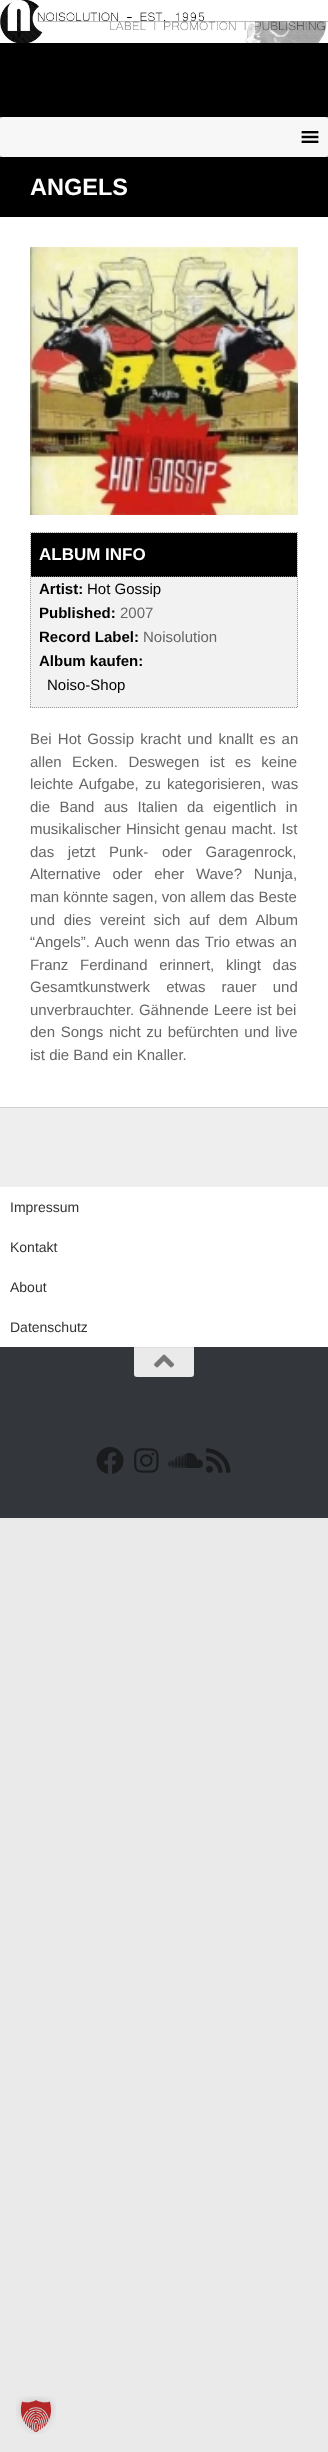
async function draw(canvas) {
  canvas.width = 328
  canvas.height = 2452
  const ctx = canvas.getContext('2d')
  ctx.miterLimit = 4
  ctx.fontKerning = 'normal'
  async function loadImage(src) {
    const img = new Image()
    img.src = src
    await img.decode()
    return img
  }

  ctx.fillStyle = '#eaeaea'
  ctx.fillRect(0, 0, 328, 2452)
  ctx.drawImage(await loadImage('image0.png'), 0, 0, 328, 43)
  ctx.fillStyle = '#0000001a'
  ctx.filter = 'blur(0.5px)'
  ctx.beginPath()
  ctx.rect(0, 158, 328, 950)
  ctx.fill()
  ctx.filter = 'none'
  ctx.fillStyle = '#000'
  ctx.fillRect(0, 43, 328, 174)
  ctx.fillStyle = '#969696'
  ctx.fillRect(327, 117, 1, 40)
  ctx.fillStyle = '#9b9b9b'
  ctx.fillRect(327, 117, 1, 1)
  ctx.fillStyle = '#969696'
  ctx.fillRect(0, 117, 1, 40)
  ctx.fillStyle = '#9b9b9b'
  ctx.fillRect(0, 117, 1, 1)
  ctx.fillStyle = '#f7f7f7'
  ctx.beginPath()
  ctx.roundRect(0, 117, 328, 40, 2)
  ctx.fill()
  ctx.drawImage(await loadImage('image1.png'), 301, 131, 18, 12)
  ctx.fillStyle = '#fff'
  ctx.fillRect(0, 217, 328, 890)
  ctx.font = 'bold 23.5px Liberation Sans'
  ctx.fillText('ANGELS', 30, 195)
  ctx.drawImage(await loadImage('image2.png'), 30, 247, 268, 268)
  ctx.fillStyle = '#f2f2f2'
  ctx.fillRect(30, 532, 268, 176)
  ctx.beginPath()
  ctx.moveTo(30, 532.5)
  ctx.lineTo(298, 532.5)
  ctx.strokeStyle = '#999'
  ctx.setLineDash([1, 1])
  ctx.stroke()
  ctx.beginPath()
  ctx.moveTo(297.5, 532)
  ctx.lineTo(297.5, 708)
  ctx.stroke()
  ctx.beginPath()
  ctx.moveTo(30, 707.5)
  ctx.lineTo(298, 707.5)
  ctx.stroke()
  ctx.beginPath()
  ctx.moveTo(30.5, 532)
  ctx.lineTo(30.5, 708)
  ctx.stroke()
  ctx.fillStyle = '#000'
  ctx.fillRect(31, 533, 266, 44)
  ctx.beginPath()
  ctx.moveTo(31, 576.5)
  ctx.lineTo(297, 576.5)
  ctx.strokeStyle = '#666'
  ctx.stroke()
  ctx.font = 'bold 17px Liberation Sans'
  ctx.fillStyle = '#fff'
  ctx.fillText('ALBUM INFO', 39, 560)
  ctx.font = 'bold 15px Liberation Sans'
  ctx.fillStyle = '#000'
  ctx.fillText('Artist:', 39, 594)
  ctx.font = '15px Liberation Sans'
  ctx.fillText('Hot Gossip', 87, 594)
  ctx.font = 'bold 15px Liberation Sans'
  ctx.fillText('Published:', 39, 618)
  ctx.font = '15px Liberation Sans'
  ctx.fillStyle = '#666'
  ctx.fillText('2007', 120, 618)
  ctx.font = 'bold 15px Liberation Sans'
  ctx.fillStyle = '#000'
  ctx.fillText('Record Label:', 39, 642)
  ctx.font = '15px Liberation Sans'
  ctx.fillStyle = '#666'
  ctx.fillText('Noisolution', 143, 642)
  ctx.font = 'bold 15px Liberation Sans'
  ctx.fillStyle = '#000'
  ctx.fillText('Album kaufen:', 39, 666)
  ctx.font = '15px Liberation Sans'
  ctx.fillText('Noiso-Shop', 47, 690)
  ctx.wordSpacing = '2px'
  ctx.fillStyle = '#666'
  ctx.fillText('Bei Hot Gossip kracht und knallt es an', 30, 744)
  ctx.wordSpacing = '6.25px'
  ctx.fillText('allen Ecken. Deswegen ist es keine', 30, 767)
  ctx.wordSpacing = '2px'
  ctx.fillText('leichte Aufgabe, zu kategorisieren, was', 30, 789)
  ctx.wordSpacing = '5.25px'
  ctx.fillText('die Band aus Italien da eigentlich in', 30, 812)
  ctx.wordSpacing = '1px'
  ctx.fillText('musikalischer Hinsicht genau macht. Ist', 30, 834)
  ctx.wordSpacing = '9.5px'
  ctx.fillText('das jetzt Punk- oder Garagenrock,', 30, 857)
  ctx.wordSpacing = '7.5px'
  ctx.fillText('Alternative oder eher Wave? Nunja,', 30, 879)
  ctx.wordSpacing = '0px'
  ctx.fillText('man könnte sagen, von allem das Beste', 30, 902)
  ctx.wordSpacing = '4.5px'
  ctx.fillText('und dies vereint sich auf dem Album', 30, 925)
  ctx.wordSpacing = '1.25px'
  ctx.fillText('“Angels”. Auch wenn das Trio etwas an', 30, 947)
  ctx.wordSpacing = '7.5px'
  ctx.fillText('Franz Ferdinand erinnert, klingt das', 30, 970)
  ctx.wordSpacing = '12px'
  ctx.fillText('Gesamtkunstwerk etwas rauer und', 30, 992)
  ctx.wordSpacing = '0.5px'
  ctx.fillText('unverbrauchter. Gähnende Leere ist bei', 30, 1015)
  ctx.wordSpacing = '1.5px'
  ctx.fillText('den Songs nicht zu befürchten und live', 30, 1037)
  ctx.wordSpacing = '0px'
  ctx.fillText('ist die Band ein Knaller.', 30, 1060)
  ctx.fillStyle = '#fff'
  ctx.fillRect(0, 1187, 328, 160)
  ctx.fillStyle = '#eee'
  ctx.fillRect(0, 1108, 328, 79)
  ctx.font = '14px Liberation Sans'
  ctx.fillStyle = '#333'
  ctx.fillText('Impressum', 10, 1212)
  ctx.fillText('Kontakt', 10, 1252)
  ctx.fillText('About', 10, 1292)
  ctx.fillText('Datenschutz', 10, 1332)
  ctx.fillStyle = '#33363b'
  ctx.fillRect(0, 1347, 328, 171)
  ctx.fillStyle = '#eaeaea'
  ctx.beginPath()
  ctx.roundRect(134, 1347, 60, 30, [0, 0, 3, 3])
  ctx.fill()
  ctx.fillStyle = '#dedede'
  ctx.fillRect(134, 1347, 60, 1)
  ctx.drawImage(await loadImage('image3.png'), 154, 1354, 20, 14)
  ctx.drawImage(await loadImage('image4.png'), 96, 1447, 28, 27)
  ctx.drawImage(await loadImage('image5.png'), 134, 1448, 25, 25)
  ctx.drawImage(await loadImage('image6.png'), 168, 1453, 35, 15)
  ctx.drawImage(await loadImage('image7.png'), 206, 1448, 25, 25)
  ctx.drawImage(await loadImage('image8.png'), 16, 2396, 40, 38)
}

draw(document.querySelector('canvas'))
